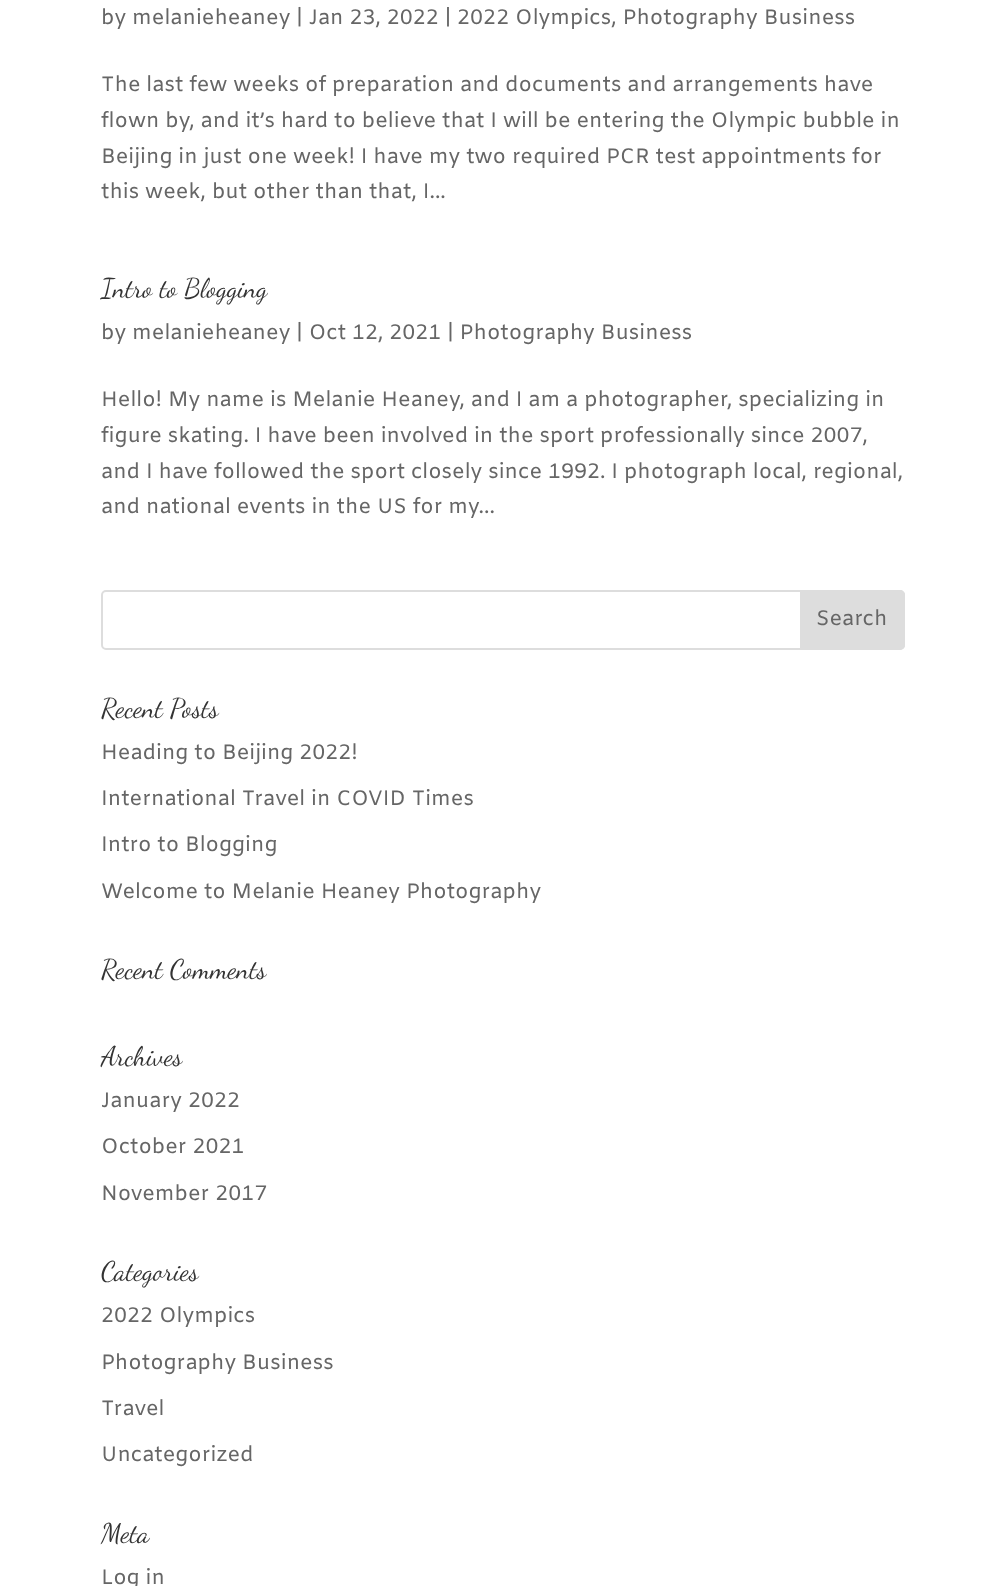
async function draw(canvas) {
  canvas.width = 1005
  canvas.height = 1586
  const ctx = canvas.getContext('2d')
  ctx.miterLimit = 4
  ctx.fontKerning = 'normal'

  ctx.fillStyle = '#fff'
  ctx.fillRect(0, 0, 1005, 1586)
  ctx.font = '21px Amiko'
  ctx.fillStyle = '#666'
  ctx.fillText('by melanieheaney | Jan 23, 2022 | 2022 Olympics, Photography Business', 101, 24)
  ctx.fillText('The last few weeks of preparation and documents and arrangements have', 101, 91)
  ctx.fillText('flown by, and it’s hard to believe that I will be entering the Olympic bubble in', 101, 127)
  ctx.fillText('Beijing in just one week! I have my two required PCR test appointments for', 101, 163)
  ctx.fillText('this week, but other than that, I...', 101, 198)
  ctx.font = '27px Dancing Script'
  ctx.fillStyle = '#333'
  ctx.fillText('Intro to Blogging', 101, 297)
  ctx.font = '21px Amiko'
  ctx.fillStyle = '#666'
  ctx.fillText('by melanieheaney | Oct 12, 2021 | Photography Business', 101, 339)
  ctx.fillText('Hello! My name is Melanie Heaney, and I am a photographer, specializing in', 101, 406)
  ctx.fillText('figure skating. I have been involved in the sport professionally since 2007,', 101, 442)
  ctx.fillText('and I have followed the sport closely since 1992. I photograph local, regional,', 101, 478)
  ctx.fillText('and national events in the US for my...', 101, 513)
  ctx.beginPath()
  ctx.roundRect(102, 591, 802, 58, 4)
  ctx.strokeStyle = '#ddd'
  ctx.lineWidth = 2
  ctx.stroke()
  ctx.fillStyle = '#ddd'
  ctx.beginPath()
  ctx.roundRect(801, 591, 103, 58, [0, 4, 4, 0])
  ctx.fill()
  ctx.stroke()
  ctx.fillStyle = '#666'
  ctx.fillText('Search', 816, 625)
  ctx.font = '27px Dancing Script'
  ctx.fillStyle = '#333'
  ctx.fillText('Recent Posts', 101, 717)
  ctx.font = '21px Amiko'
  ctx.fillStyle = '#666'
  ctx.fillText('Heading to Beijing 2022!', 101, 759)
  ctx.fillText('International Travel in COVID Times', 101, 805)
  ctx.fillText('Intro to Blogging', 101, 851)
  ctx.fillText('Welcome to Melanie Heaney Photography', 101, 898)
  ctx.font = '27px Dancing Script'
  ctx.fillStyle = '#333'
  ctx.fillText('Recent Comments', 101, 978)
  ctx.fillText('Archives', 101, 1065)
  ctx.font = '21px Amiko'
  ctx.fillStyle = '#666'
  ctx.fillText('January 2022', 101, 1107)
  ctx.fillText('October 2021', 101, 1153)
  ctx.fillText('November 2017', 101, 1200)
  ctx.font = '27px Dancing Script'
  ctx.fillStyle = '#333'
  ctx.fillText('Categories', 101, 1280)
  ctx.font = '21px Amiko'
  ctx.fillStyle = '#666'
  ctx.fillText('2022 Olympics', 101, 1322)
  ctx.fillText('Photography Business', 101, 1369)
  ctx.fillText('Travel', 101, 1415)
  ctx.fillText('Uncategorized', 101, 1461)
  ctx.font = '27px Dancing Script'
  ctx.fillStyle = '#333'
  ctx.fillText('Meta', 101, 1542)
  ctx.font = '21px Amiko'
  ctx.fillStyle = '#666'
  ctx.fillText('Log in', 101, 1584)
}

draw(document.querySelector('canvas'))
